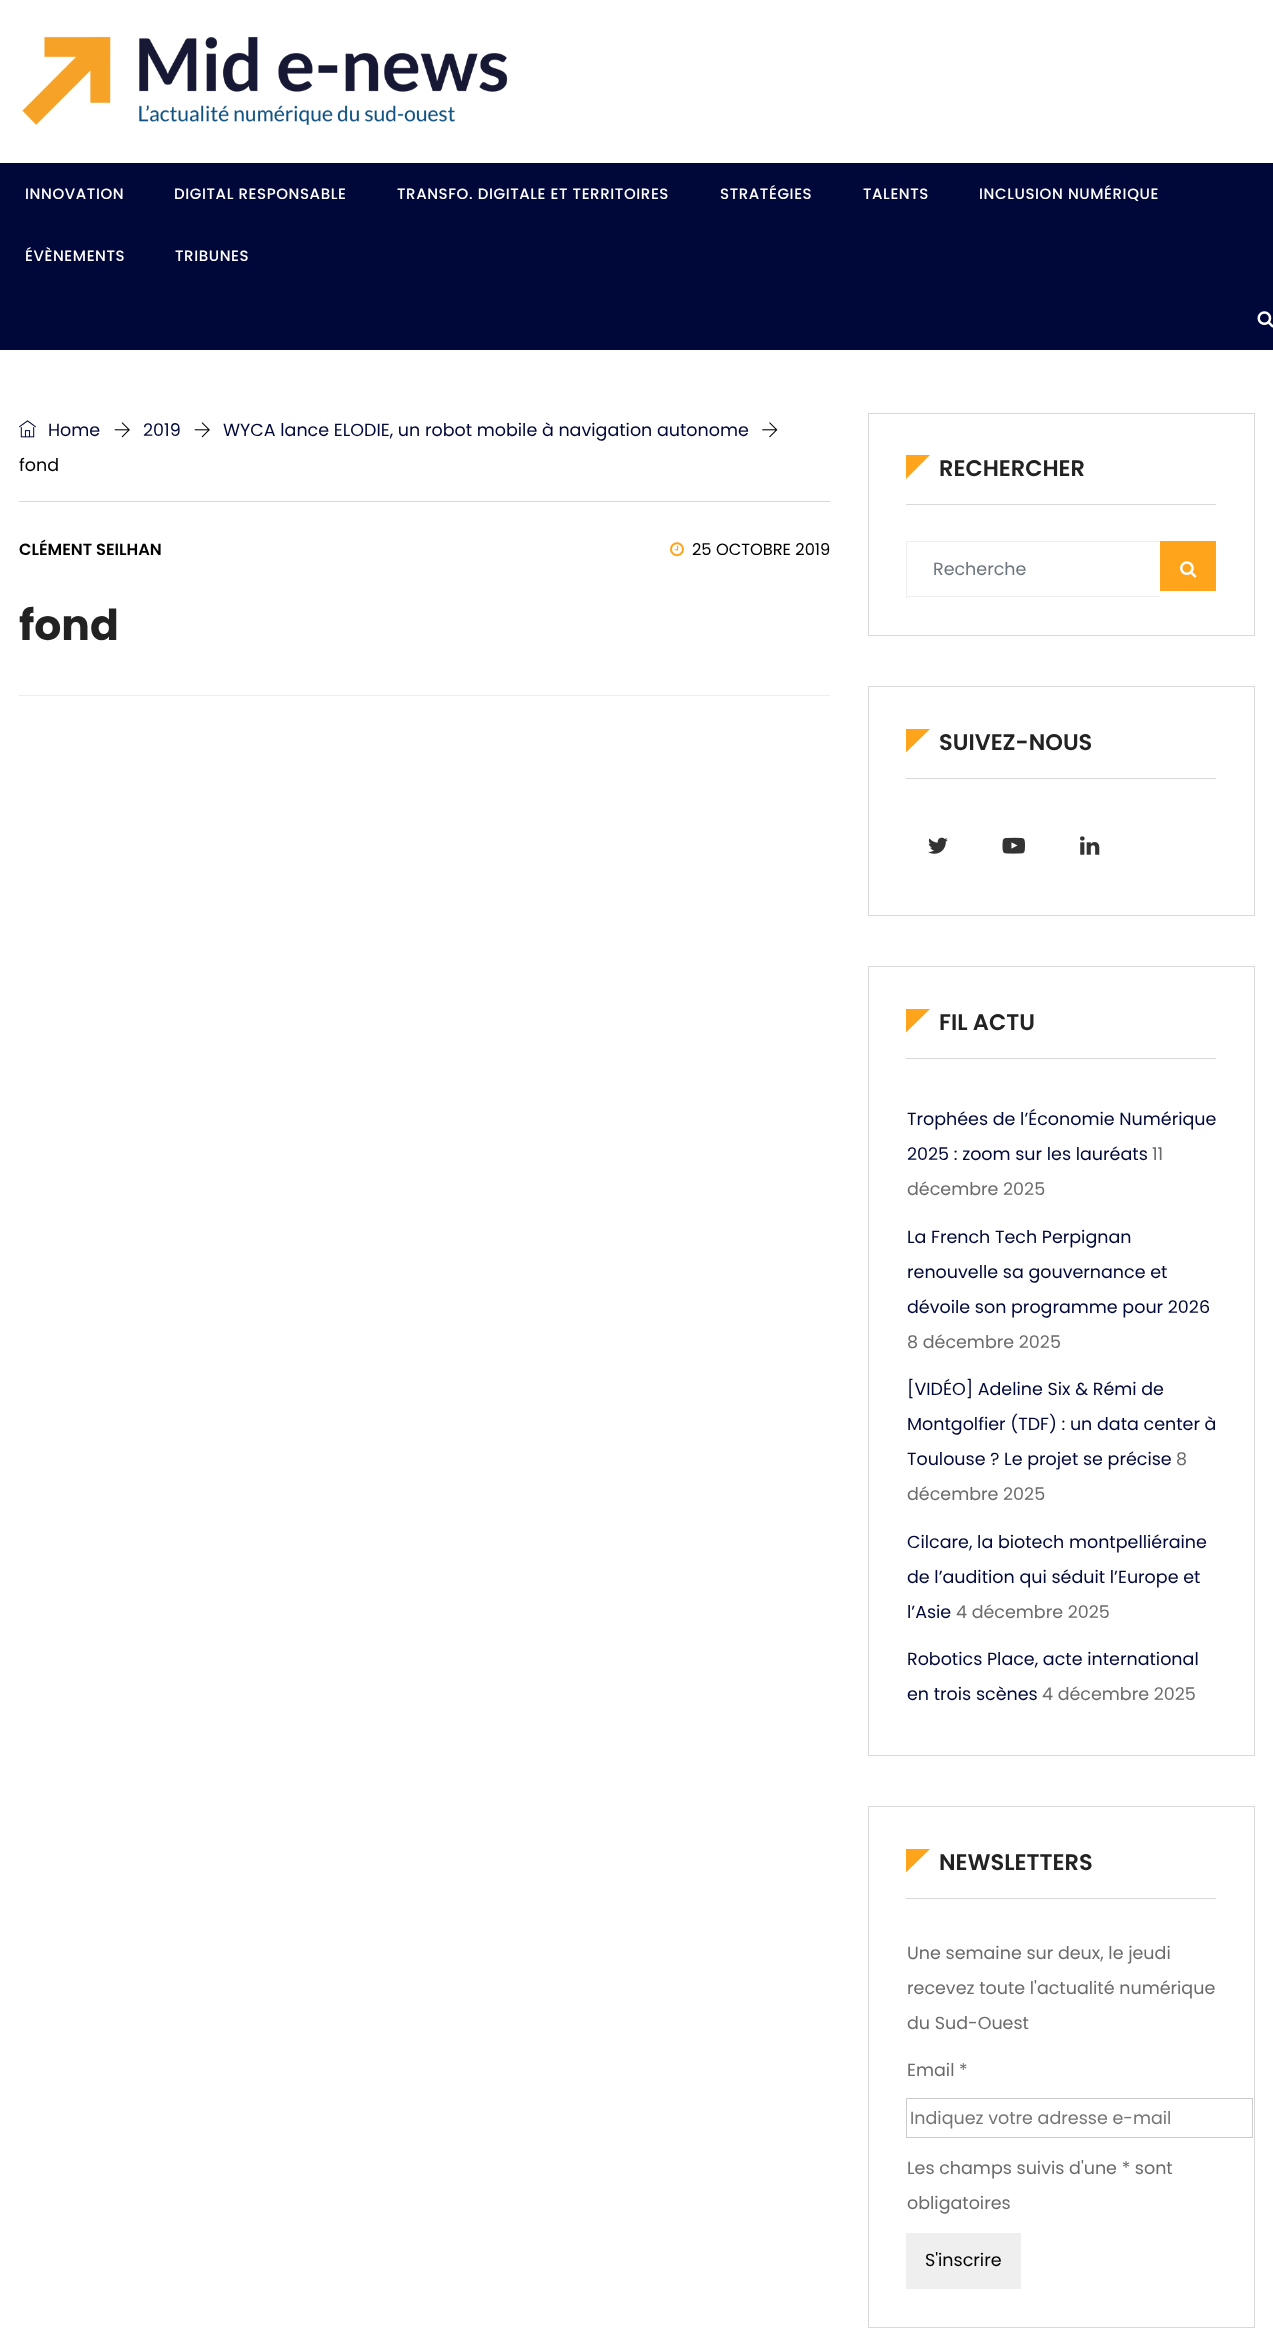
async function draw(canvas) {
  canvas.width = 1273
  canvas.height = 2337
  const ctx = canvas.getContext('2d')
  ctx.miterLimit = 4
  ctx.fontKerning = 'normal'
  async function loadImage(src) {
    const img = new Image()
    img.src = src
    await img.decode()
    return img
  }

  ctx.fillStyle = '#fff'
  ctx.fillRect(0, 0, 1273, 2337)
  ctx.drawImage(await loadImage('image0.png'), 22, 36, 486, 89)
  ctx.fillStyle = '#000839'
  ctx.fillRect(0, 163, 1273, 187)
  ctx.letterSpacing = '0.6px'
  ctx.font = '500 15px Poppins'
  ctx.fillStyle = '#fff'
  ctx.fillText('INNOVATION', 25, 199)
  ctx.fillText('DIGITAL RESPONSABLE', 174, 199)
  ctx.fillText('TRANSFO. DIGITALE ET TERRITOIRES', 397, 199)
  ctx.fillText('STRATÉGIES', 720, 199)
  ctx.fillText('TALENTS', 863, 199)
  ctx.fillText('INCLUSION NUMÉRIQUE', 979, 199)
  ctx.fillText('ÉVÈNEMENTS', 25, 261)
  ctx.fillText('TRIBUNES', 175, 261)
  ctx.drawImage(await loadImage('image1.png'), 1257, 311, 16, 17)
  ctx.drawImage(await loadImage('image2.png'), 19, 420, 17, 18)
  ctx.letterSpacing = '0px'
  ctx.font = '17.5px Poppins'
  ctx.fillStyle = '#000839'
  ctx.fillText('Home', 48, 436)
  ctx.drawImage(await loadImage('image3.png'), 114, 422, 16, 16)
  ctx.fillText('2019', 143, 436)
  ctx.drawImage(await loadImage('image3.png'), 194, 422, 16, 16)
  ctx.fillText('WYCA lance ELODIE, un robot mobile à navigation autonome', 223, 436)
  ctx.drawImage(await loadImage('image4.png'), 762, 422, 16, 16)
  ctx.fillStyle = '#000'
  ctx.fillText('fond', 19, 471)
  ctx.fillStyle = '#d9d9d9'
  ctx.fillRect(19, 501, 811, 1)
  ctx.font = '600 16.25px Poppins'
  ctx.fillStyle = '#000'
  ctx.fillText('CLÉMENT SEILHAN', 19, 555)
  ctx.drawImage(await loadImage('image5.png'), 670, 542, 14, 15)
  ctx.font = '16.25px Poppins'
  ctx.fillText('25 OCTOBRE 2019', 692, 555)
  ctx.font = 'bold 42.5px Poppins'
  ctx.fillStyle = '#222'
  ctx.fillText('fond', 19, 640)
  ctx.fillStyle = '#eee'
  ctx.fillRect(19, 695, 811, 1)
  ctx.strokeStyle = '#d9d9d9'
  ctx.strokeRect(868.5, 413.5, 386, 222)
  ctx.fillStyle = '#ffa41b'
  ctx.beginPath()
  ctx.moveTo(906, 455)
  ctx.lineTo(930, 455)
  ctx.lineTo(906, 479)
  ctx.closePath()
  ctx.fill()
  ctx.font = '600 22.5px Poppins'
  ctx.fillStyle = '#222'
  ctx.fillText('RECHERCHER', 939, 476)
  ctx.fillStyle = '#d9d9d9'
  ctx.fillRect(906, 504, 310, 1)
  ctx.fillStyle = '#eee'
  ctx.fillRect(906, 541, 254, 1)
  ctx.fillRect(906, 596, 254, 1)
  ctx.fillRect(906, 541, 1, 57)
  ctx.font = '17.5px Poppins'
  ctx.fillStyle = '#6c757d'
  ctx.fillText('Recherche', 933, 575)
  ctx.fillStyle = '#ffa41b'
  ctx.fillRect(1160, 541, 56, 50)
  ctx.drawImage(await loadImage('image6.png'), 1180, 561, 17, 17)
  ctx.strokeRect(868.5, 686.5, 386, 229)
  ctx.beginPath()
  ctx.moveTo(906, 729)
  ctx.lineTo(930, 729)
  ctx.lineTo(906, 752.5)
  ctx.closePath()
  ctx.fill()
  ctx.font = '600 22.5px Poppins'
  ctx.fillStyle = '#222'
  ctx.fillText('SUIVEZ-NOUS', 939, 750)
  ctx.fillStyle = '#d9d9d9'
  ctx.fillRect(906, 778, 310, 1)
  ctx.drawImage(await loadImage('image7.png'), 928, 837, 20, 17)
  ctx.drawImage(await loadImage('image8.png'), 1002, 837, 23, 17)
  ctx.drawImage(await loadImage('image9.png'), 1080, 836, 20, 19)
  ctx.strokeRect(868.5, 966.5, 386, 789)
  ctx.fillStyle = '#ffa41b'
  ctx.beginPath()
  ctx.moveTo(906, 1009)
  ctx.lineTo(930, 1009)
  ctx.lineTo(906, 1032.5)
  ctx.closePath()
  ctx.fill()
  ctx.fillStyle = '#222'
  ctx.fillText('FIL ACTU', 939, 1030)
  ctx.fillStyle = '#d9d9d9'
  ctx.fillRect(906, 1058, 310, 1)
  ctx.font = '17.5px Poppins'
  ctx.fillStyle = '#000839'
  ctx.fillText('Trophées de l’Économie Numérique', 907, 1125)
  ctx.fillText('2025 : zoom sur les lauréats', 907, 1160)
  ctx.fillStyle = '#6b6b6b'
  ctx.fillText('11', 1152, 1160)
  ctx.fillText('décembre 2025', 907, 1195)
  ctx.fillStyle = '#000839'
  ctx.fillText('La French Tech Perpignan', 907, 1243)
  ctx.fillText('renouvelle sa gouvernance et', 907, 1278)
  ctx.fillText('dévoile son programme pour 2026', 907, 1313)
  ctx.fillStyle = '#6b6b6b'
  ctx.fillText('8 décembre 2025', 907, 1348)
  ctx.fillStyle = '#000839'
  ctx.fillText('[VIDÉO] Adeline Six & Rémi de', 907, 1395)
  ctx.fillText('Montgolfier (TDF) : un data center à', 907, 1430)
  ctx.fillText('Toulouse ? Le projet se précise', 907, 1465)
  ctx.fillStyle = '#6b6b6b'
  ctx.fillText('8', 1176, 1465)
  ctx.fillText('décembre 2025', 907, 1500)
  ctx.fillStyle = '#000839'
  ctx.fillText('Cilcare, la biotech montpelliéraine', 907, 1548)
  ctx.fillText('de l’audition qui séduit l’Europe et', 907, 1583)
  ctx.fillText('l’Asie', 907, 1618)
  ctx.fillStyle = '#6b6b6b'
  ctx.fillText('4 décembre 2025', 956, 1618)
  ctx.fillStyle = '#000839'
  ctx.fillText('Robotics Place, acte international', 907, 1665)
  ctx.fillText('en trois scènes', 907, 1700)
  ctx.fillStyle = '#6b6b6b'
  ctx.fillText('4 décembre 2025', 1042, 1700)
  ctx.strokeRect(868.5, 1806.5, 386, 521)
  ctx.fillStyle = '#ffa41b'
  ctx.beginPath()
  ctx.moveTo(906, 1849)
  ctx.lineTo(930, 1849)
  ctx.lineTo(906, 1872.5)
  ctx.closePath()
  ctx.fill()
  ctx.font = '600 22.5px Poppins'
  ctx.fillStyle = '#222'
  ctx.fillText('NEWSLETTERS', 939, 1870)
  ctx.fillStyle = '#d9d9d9'
  ctx.fillRect(906, 1898, 310, 1)
  ctx.font = '17.5px Poppins'
  ctx.fillStyle = '#6b6b6b'
  ctx.fillText('Une semaine sur deux, le jeudi', 907, 1959)
  ctx.fillText('recevez toute l\'actualité numérique', 907, 1994)
  ctx.fillText('du Sud-Ouest', 907, 2029)
  ctx.fillText('Email *', 907, 2076)
  ctx.strokeStyle = '#ccc'
  ctx.strokeRect(906.5, 2098.5, 346, 39)
  ctx.fillStyle = '#757575'
  ctx.fillText('Indiquez votre adresse e-mail', 910, 2124)
  ctx.fillStyle = '#6b6b6b'
  ctx.fillText('Les champs suivis d\'une * sont', 907, 2174)
  ctx.fillText('obligatoires', 907, 2209)
  ctx.fillStyle = '#efefef'
  ctx.fillRect(906, 2233, 115, 56)
  ctx.fillStyle = '#000'
  ctx.fillText('S\'inscrire', 925, 2266)
}

draw(document.querySelector('canvas'))
